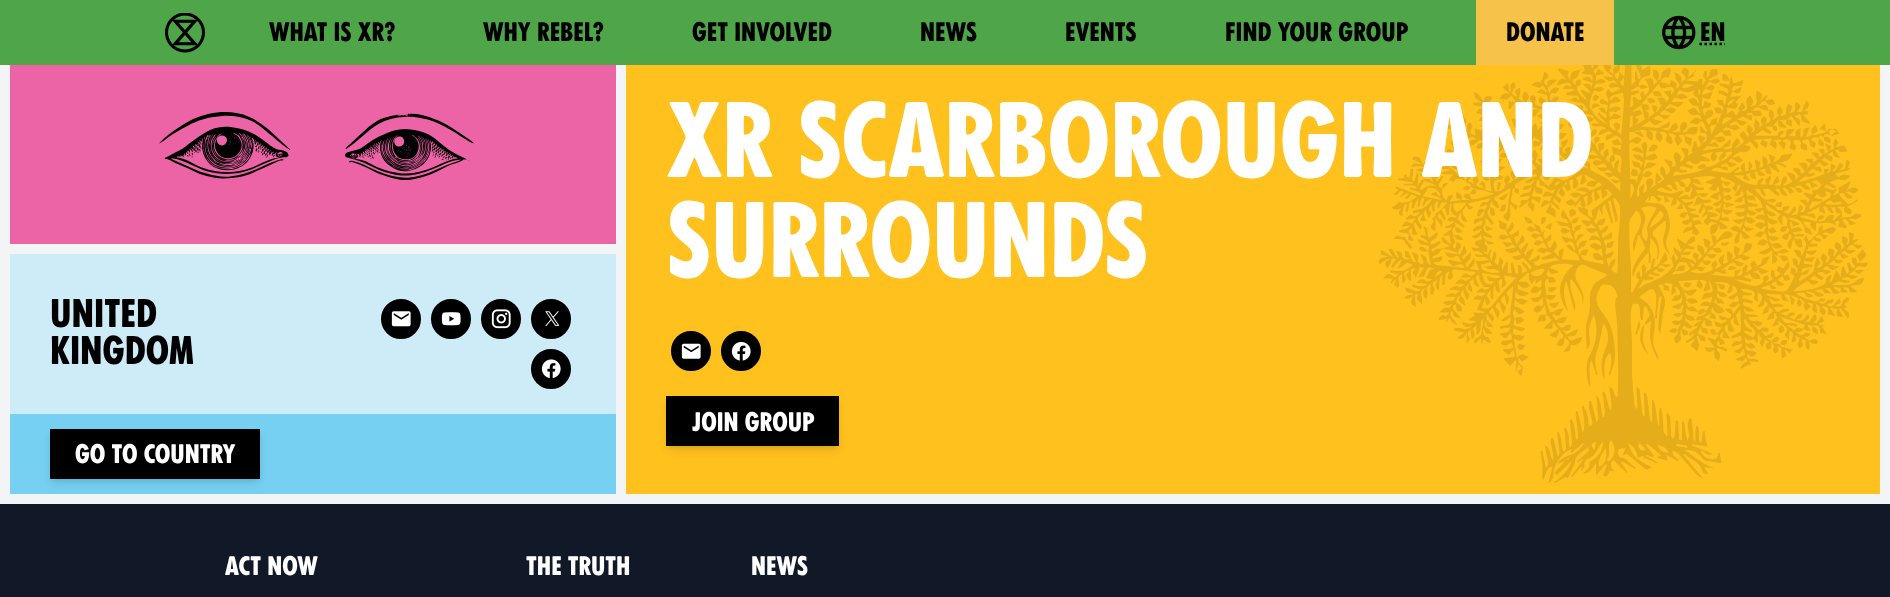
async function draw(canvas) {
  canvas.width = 1890
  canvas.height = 597
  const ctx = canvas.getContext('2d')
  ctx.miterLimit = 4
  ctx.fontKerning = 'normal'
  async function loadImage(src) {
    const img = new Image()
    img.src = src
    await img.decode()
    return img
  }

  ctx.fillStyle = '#f3f4f6'
  ctx.fillRect(0, 0, 1890, 597)
  ctx.fillStyle = '#4ea648'
  ctx.fillRect(0, 0, 1890, 65)
  ctx.drawImage(await loadImage('image0.png'), 165, 13, 40, 40)
  ctx.font = '25px "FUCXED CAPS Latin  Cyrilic"'
  ctx.fillStyle = '#000'
  ctx.fillText('WHAT IS XR?', 269, 41)
  ctx.fillText('WHY REBEL?', 483, 41)
  ctx.fillText('GET INVOLVED', 692, 41)
  ctx.fillText('NEWS', 920, 41)
  ctx.fillText('EVENTS', 1065, 41)
  ctx.fillText('FIND YOUR GROUP', 1225, 41)
  ctx.fillStyle = '#f6c24a'
  ctx.fillRect(1476, 0, 138, 65)
  ctx.fillStyle = '#000'
  ctx.fillText('DONATE', 1506, 41)
  ctx.drawImage(await loadImage('image1.png'), 1662, 15, 34, 35)
  ctx.fillText('en', 1700, 41)
  ctx.beginPath()
  ctx.moveTo(1699.5, 44)
  ctx.lineTo(1725, 44)
  ctx.strokeStyle = '#000'
  ctx.lineWidth = 2.5
  ctx.setLineDash([2.5, 2.5])
  ctx.stroke()
  ctx.fillStyle = '#ed64a6'
  ctx.fillRect(10, 65, 606, 179)
  ctx.drawImage(await loadImage('image2.png'), 154, 112, 320, 68)
  ctx.fillStyle = '#ceebf8'
  ctx.fillRect(10, 254, 606, 160)
  ctx.font = '37.5px "FUCXED CAPS Latin  Cyrilic"'
  ctx.fillStyle = '#000'
  ctx.fillText('UNITED', 50, 327)
  ctx.fillText('KINGDOM', 50, 364)
  ctx.beginPath()
  ctx.arc(401, 319, 18.5, 0, 2 * Math.PI)
  ctx.fill()
  ctx.lineWidth = 3
  ctx.setLineDash([])
  ctx.stroke()
  ctx.drawImage(await loadImage('image3.png'), 391, 311, 20, 16)
  ctx.beginPath()
  ctx.arc(451, 319, 18.5, 0, 2 * Math.PI)
  ctx.fill()
  ctx.stroke()
  ctx.drawImage(await loadImage('image4.png'), 441, 312, 20, 14)
  ctx.beginPath()
  ctx.arc(501, 319, 18.5, 0, 2 * Math.PI)
  ctx.fill()
  ctx.stroke()
  ctx.drawImage(await loadImage('image5.png'), 491, 309, 20, 20)
  ctx.beginPath()
  ctx.arc(551, 319, 18.5, 0, 2 * Math.PI)
  ctx.fill()
  ctx.stroke()
  ctx.drawImage(await loadImage('image6.png'), 545, 311, 14, 15)
  ctx.beginPath()
  ctx.arc(551, 369, 18.5, 0, 2 * Math.PI)
  ctx.fill()
  ctx.stroke()
  ctx.drawImage(await loadImage('image7.png'), 541, 359, 20, 19)
  ctx.fillStyle = '#75d0f1'
  ctx.fillRect(10, 414, 606, 80)
  ctx.fillStyle = '#0000001a'
  ctx.filter = 'blur(2.5px)'
  ctx.beginPath()
  ctx.rect(53, 434, 205, 45)
  ctx.fill()
  ctx.filter = 'none'
  ctx.filter = 'blur(4px)'
  ctx.beginPath()
  ctx.rect(51, 435, 208, 48)
  ctx.fill()
  ctx.filter = 'none'
  ctx.fillStyle = '#000'
  ctx.fillRect(50, 429, 210, 50)
  ctx.font = '25px "FUCXED CAPS Latin  Cyrilic"'
  ctx.fillStyle = '#fff'
  ctx.fillText('Go to country', 75, 463)
  ctx.fillStyle = '#ffc11e'
  ctx.fillRect(626, 65, 1254, 429)
  ctx.drawImage(await loadImage('image10.png'), 1379, 65, 489, 418)
  ctx.font = '100px "FUCXED CAPS Latin  Cyrilic"'
  ctx.fillStyle = '#fff'
  ctx.fillText('XR SCARBOROUGH AND', 667, 177)
  ctx.fillText('SURROUNDS', 667, 277)
  ctx.fillStyle = '#000'
  ctx.beginPath()
  ctx.arc(691, 351, 18.5, 0, 2 * Math.PI)
  ctx.fill()
  ctx.stroke()
  ctx.drawImage(await loadImage('image8.png'), 681, 343, 20, 16)
  ctx.beginPath()
  ctx.arc(741, 351, 18.5, 0, 2 * Math.PI)
  ctx.fill()
  ctx.stroke()
  ctx.drawImage(await loadImage('image9.png'), 731, 341, 20, 20)
  ctx.fillStyle = '#0000001a'
  ctx.filter = 'blur(2.5px)'
  ctx.beginPath()
  ctx.rect(669, 401, 167, 45)
  ctx.fill()
  ctx.filter = 'none'
  ctx.filter = 'blur(4px)'
  ctx.beginPath()
  ctx.rect(668, 403, 170, 47)
  ctx.fill()
  ctx.filter = 'none'
  ctx.fillStyle = '#000'
  ctx.fillRect(666, 396, 173, 50)
  ctx.font = '25px "FUCXED CAPS Latin  Cyrilic"'
  ctx.fillStyle = '#fff'
  ctx.fillText('Join Group', 692, 431)
  ctx.fillStyle = '#111827'
  ctx.fillRect(0, 504, 1890, 93)
  ctx.fillStyle = '#fff'
  ctx.fillText('ACT NOW', 225, 575)
  ctx.fillText('THE TRUTH', 526, 575)
  ctx.fillText('NEWS', 751, 575)
}

draw(document.querySelector('canvas'))
